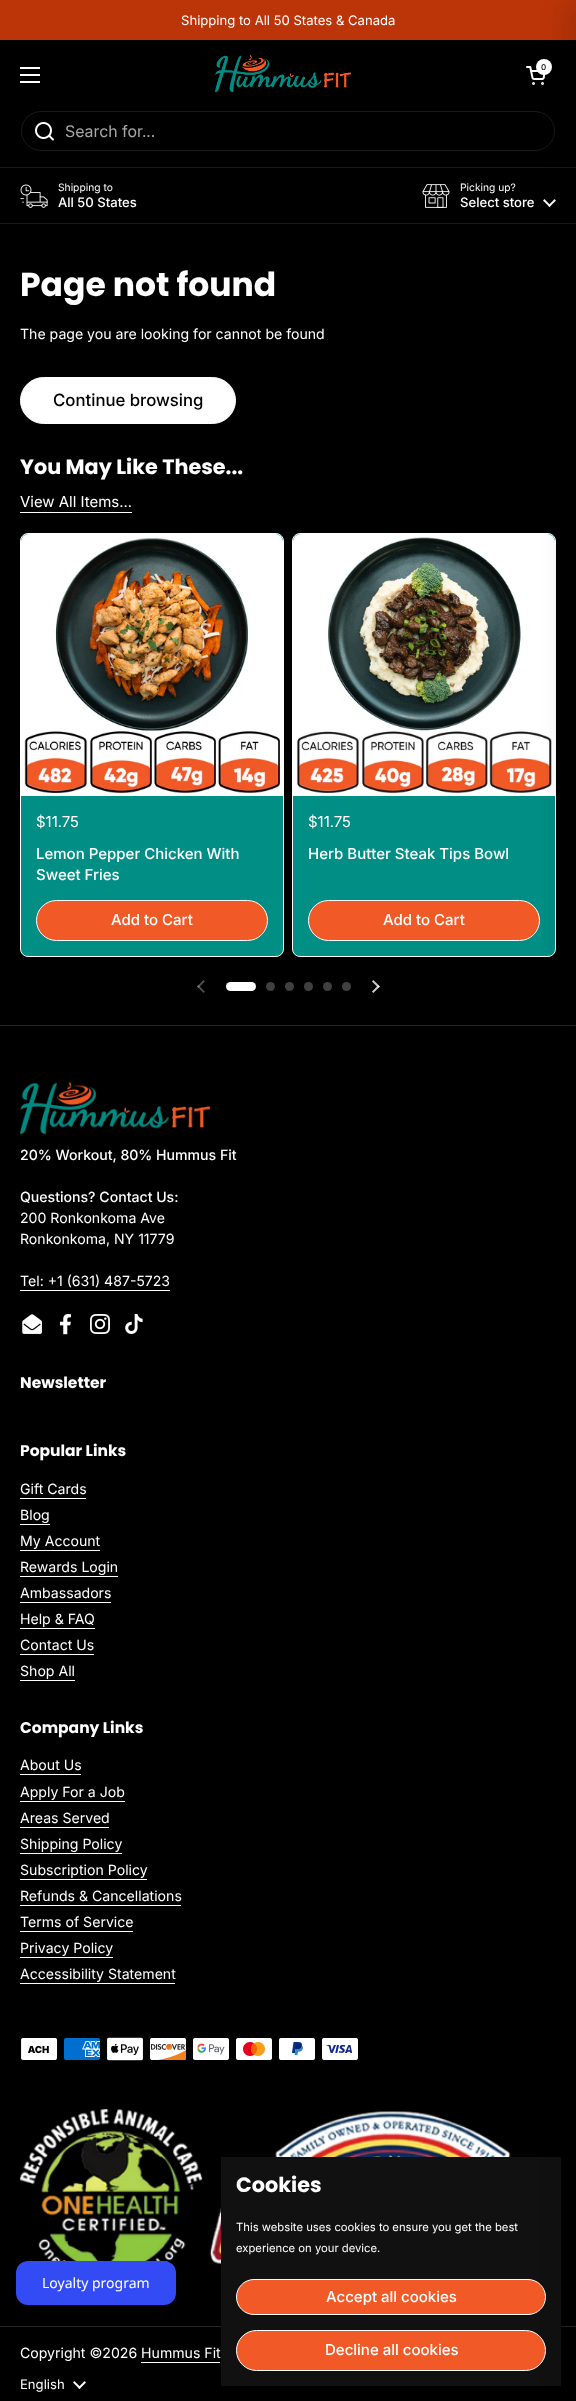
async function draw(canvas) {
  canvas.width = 576
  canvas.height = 2401
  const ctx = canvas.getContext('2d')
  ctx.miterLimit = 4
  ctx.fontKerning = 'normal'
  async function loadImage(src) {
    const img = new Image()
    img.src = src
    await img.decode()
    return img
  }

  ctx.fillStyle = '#000'
  ctx.fillRect(0, 0, 576, 2401)
  ctx.fillStyle = '#bc3508'
  ctx.fillRect(0, 0, 576, 40)
  ctx.font = '13.1px Inter'
  ctx.fillStyle = '#fff'
  ctx.fillText('Shipping to All 50 States & Canada', 181, 25)
  ctx.fillRect(20, 67, 20, 2)
  ctx.fillRect(20, 74, 20, 2)
  ctx.fillRect(20, 81, 20, 2)
  ctx.drawImage(await loadImage('image0.png'), 215, 55, 136, 38)
  ctx.drawImage(await loadImage('image1.png'), 526, 66, 20, 19)
  ctx.beginPath()
  ctx.arc(544, 67, 8, 0, 2 * Math.PI)
  ctx.fill()
  ctx.font = '500 8px "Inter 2"'
  ctx.fillStyle = '#000'
  ctx.fillText('0', 541, 70)
  ctx.fillStyle = '#1a1a1a'
  ctx.fillRect(0, 167, 576, 1)
  ctx.beginPath()
  ctx.roundRect(21.5, 111.5, 533, 39, 19.5)
  ctx.strokeStyle = '#1a1a1a'
  ctx.stroke()
  ctx.drawImage(await loadImage('image2.png'), 35, 122, 19, 19)
  ctx.font = '16px "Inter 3"'
  ctx.fillStyle = '#a8a8a8'
  ctx.fillText('Search for...', 65, 137)
  ctx.fillStyle = '#1a1a1a'
  ctx.fillRect(0, 223, 576, 1)
  ctx.drawImage(await loadImage('image3.png'), 20, 184, 28, 24)
  ctx.font = '10.25px Inter'
  ctx.fillStyle = '#fff'
  ctx.fillText('Shipping to', 58, 191)
  ctx.font = '500 13.1px "Inter 2"'
  ctx.fillText('All 50 States', 58, 207)
  ctx.drawImage(await loadImage('image4.png'), 422, 184, 28, 24)
  ctx.font = '10.25px Inter'
  ctx.fillText('Picking up?', 460, 191)
  ctx.font = '500 13.1px "Inter 2"'
  ctx.fillText('Select store', 460, 207)
  ctx.drawImage(await loadImage('image5.png'), 543, 199, 13, 8)
  ctx.font = 'bold 33px Poppins'
  ctx.fillText('Page not found', 20, 296)
  ctx.font = '14.1px Inter'
  ctx.fillText('The page you are looking for cannot be found', 20, 339)
  ctx.beginPath()
  ctx.roundRect(20.5, 377.5, 215, 46, 23)
  ctx.fill()
  ctx.strokeStyle = '#fff'
  ctx.stroke()
  ctx.font = '500 16.9px Inter'
  ctx.fillStyle = '#000'
  ctx.fillText('Continue browsing', 53, 406)
  ctx.font = 'bold 20.75px Poppins'
  ctx.fillStyle = '#fff'
  ctx.fillText('You May Like These...', 20, 474)
  ctx.font = '15px "Inter 2"'
  ctx.fillText('View All Items...', 20, 507)
  ctx.fillRect(20, 512, 112, 1)
  ctx.fillStyle = '#008e85'
  ctx.beginPath()
  ctx.roundRect(20.5, 533.5, 263, 423, 7.5)
  ctx.fill()
  ctx.stroke()
  ctx.drawImage(await loadImage('image6.png'), 21, 534, 262, 262)
  ctx.fillStyle = '#fff'
  ctx.fillText('$11.75', 36, 827)
  ctx.font = '500 15px "Inter 2"'
  ctx.fillText('Lemon Pepper Chicken With', 36, 859)
  ctx.fillText('Sweet Fries', 36, 880)
  ctx.fillStyle = '#f15a26'
  ctx.beginPath()
  ctx.roundRect(36.5, 900.5, 231, 40, 20)
  ctx.fill()
  ctx.stroke()
  ctx.fillStyle = '#fff'
  ctx.fillText('Add to Cart', 111, 925)
  ctx.fillStyle = '#008e85'
  ctx.beginPath()
  ctx.roundRect(292.5, 533.5, 263, 423, 7.5)
  ctx.fill()
  ctx.stroke()
  ctx.drawImage(await loadImage('image7.png'), 293, 534, 262, 262)
  ctx.font = '15px "Inter 2"'
  ctx.fillStyle = '#fff'
  ctx.fillText('$11.75', 308, 827)
  ctx.font = '500 15px "Inter 2"'
  ctx.fillText('Herb Butter Steak Tips Bowl', 308, 859)
  ctx.fillStyle = '#f15a26'
  ctx.beginPath()
  ctx.roundRect(308.5, 900.5, 231, 40, 20)
  ctx.fill()
  ctx.stroke()
  ctx.fillStyle = '#fff'
  ctx.fillText('Add to Cart', 383, 925)
  ctx.drawImage(await loadImage('image8.png'), 197, 980, 8, 13)
  ctx.beginPath()
  ctx.roundRect(226, 982, 30, 9, 4.5)
  ctx.fill()
  ctx.fillStyle = '#404040'
  ctx.beginPath()
  ctx.arc(270.5, 986.5, 4.5, 0, 2 * Math.PI)
  ctx.fill()
  ctx.beginPath()
  ctx.arc(289.5, 986.5, 4.5, 0, 2 * Math.PI)
  ctx.fill()
  ctx.beginPath()
  ctx.arc(308.5, 986.5, 4.5, 0, 2 * Math.PI)
  ctx.fill()
  ctx.beginPath()
  ctx.arc(327.5, 986.5, 4.5, 0, 2 * Math.PI)
  ctx.fill()
  ctx.beginPath()
  ctx.arc(346.5, 986.5, 4.5, 0, 2 * Math.PI)
  ctx.fill()
  ctx.drawImage(await loadImage('image9.png'), 372, 980, 8, 13)
  ctx.fillStyle = '#262626'
  ctx.fillRect(0, 1025, 576, 1)
  ctx.drawImage(await loadImage('image10.png'), 20, 1082, 190, 53)
  ctx.font = '500 14.1px "Inter 2"'
  ctx.fillStyle = '#fff'
  ctx.fillText('20% Workout, 80% Hummus Fit', 20, 1160)
  ctx.fillText('Questions? Contact Us:', 20, 1202)
  ctx.font = '14.1px Inter'
  ctx.fillText('200 Ronkonkoma Ave', 20, 1223)
  ctx.fillText('Ronkonkoma, NY 11779', 20, 1244)
  ctx.fillText('Tel: +1 (631) 487-5723', 20, 1286)
  ctx.fillRect(20, 1290, 150, 1)
  ctx.drawImage(await loadImage('image11.png'), 22, 1314, 20, 20)
  ctx.drawImage(await loadImage('image12.png'), 60, 1314, 11, 21)
  ctx.drawImage(await loadImage('image13.png'), 90, 1314, 20, 20)
  ctx.drawImage(await loadImage('image14.png'), 125, 1314, 18, 20)
  ctx.font = 'bold 15.5px Poppins'
  ctx.fillText('Newsletter', 20, 1388)
  ctx.fillText('Popular Links', 20, 1456)
  ctx.font = '14.1px Inter'
  ctx.fillText('Gift Cards', 20, 1494)
  ctx.fillRect(20, 1498, 66, 1)
  ctx.fillText('Blog', 20, 1520)
  ctx.fillRect(20, 1524, 30, 1)
  ctx.fillText('My Account', 20, 1546)
  ctx.fillRect(20, 1550, 80, 1)
  ctx.fillText('Rewards Login', 20, 1572)
  ctx.fillRect(20, 1576, 98, 1)
  ctx.fillText('Ambassadors', 20, 1598)
  ctx.fillRect(20, 1602, 91, 1)
  ctx.fillText('Help & FAQ', 20, 1624)
  ctx.fillRect(20, 1628, 75, 1)
  ctx.fillText('Contact Us', 20, 1650)
  ctx.fillRect(20, 1654, 74, 1)
  ctx.fillText('Shop All', 20, 1676)
  ctx.fillRect(20, 1680, 55, 1)
  ctx.font = 'bold 15.5px Poppins'
  ctx.fillText('Company Links', 20, 1733)
  ctx.font = '14.1px Inter'
  ctx.fillText('About Us', 20, 1770)
  ctx.fillRect(20, 1774, 61, 1)
  ctx.fillText('Apply For a Job', 20, 1797)
  ctx.fillRect(20, 1801, 105, 1)
  ctx.fillText('Areas Served', 20, 1823)
  ctx.fillRect(20, 1827, 89, 1)
  ctx.fillText('Shipping Policy', 20, 1849)
  ctx.fillRect(20, 1853, 102, 1)
  ctx.fillText('Subscription Policy', 20, 1875)
  ctx.fillRect(20, 1879, 127, 1)
  ctx.fillText('Refunds & Cancellations', 20, 1901)
  ctx.fillRect(20, 1905, 161, 1)
  ctx.fillText('Terms of Service', 20, 1927)
  ctx.fillRect(20, 1931, 113, 1)
  ctx.fillText('Privacy Policy', 20, 1953)
  ctx.fillRect(20, 1957, 93, 1)
  ctx.fillText('Accessibility Statement', 20, 1979)
  ctx.fillRect(20, 1983, 155, 1)
  ctx.drawImage(await loadImage('image15.png'), 21, 2038, 37, 22)
  ctx.drawImage(await loadImage('image16.png'), 64, 2038, 36, 22)
  ctx.drawImage(await loadImage('image17.png'), 107, 2037, 36, 24)
  ctx.drawImage(await loadImage('image18.png'), 150, 2038, 37, 22)
  ctx.drawImage(await loadImage('image19.png'), 193, 2038, 36, 22)
  ctx.drawImage(await loadImage('image20.png'), 236, 2038, 36, 22)
  ctx.drawImage(await loadImage('image21.png'), 279, 2038, 36, 22)
  ctx.drawImage(await loadImage('image22.png'), 322, 2038, 36, 22)
  ctx.drawImage(await loadImage('image23.png'), 20, 2109, 491, 155)
  ctx.fillStyle = '#262626'
  ctx.fillRect(0, 2326, 576, 1)
  ctx.fillStyle = '#fff'
  ctx.fillText('Copyright ©2026 Hummus Fit', 20, 2358)
  ctx.fillRect(141, 2362, 79, 1)
  ctx.font = '13.1px Inter'
  ctx.fillText('English', 20, 2389)
  ctx.drawImage(await loadImage('image5.png'), 73, 2381, 13, 8)
  ctx.fillStyle = '#111'
  ctx.fillRect(221, 2157, 340, 229)
  ctx.font = 'bold 20.75px Poppins'
  ctx.fillStyle = '#fff'
  ctx.fillText('Cookies', 236, 2192)
  ctx.font = '11.25px Inter'
  ctx.fillText('This website uses cookies to ensure you get the best', 236, 2231)
  ctx.fillText('experience on your device.', 236, 2252)
  ctx.fillStyle = '#f15a26'
  ctx.beginPath()
  ctx.roundRect(236.5, 2279.5, 309, 35, 17.5)
  ctx.fill()
  ctx.stroke()
  ctx.font = '500 15px "Inter 2"'
  ctx.fillStyle = '#fff'
  ctx.fillText('Accept all cookies', 326, 2302)
  ctx.fillStyle = '#f15a26'
  ctx.beginPath()
  ctx.roundRect(236.5, 2330.5, 309, 40, 20)
  ctx.fill()
  ctx.stroke()
  ctx.fillStyle = '#fff'
  ctx.fillText('Decline all cookies', 325, 2355)
  ctx.fillStyle = '#334bf4'
  ctx.beginPath()
  ctx.roundRect(16, 2261, 160, 44, 12)
  ctx.fill()
  ctx.font = '14px Noto Sans'
  ctx.fillStyle = '#fff'
  ctx.fillText('Loyalty program', 42, 2288)
  ctx.fillStyle = '#0000001f'
  ctx.filter = 'blur(12px)'
  ctx.beginPath()
  ctx.roundRect(564, 0, 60, 2401, 12)
  ctx.fill()
  ctx.filter = 'none'
}

draw(document.querySelector('canvas'))
